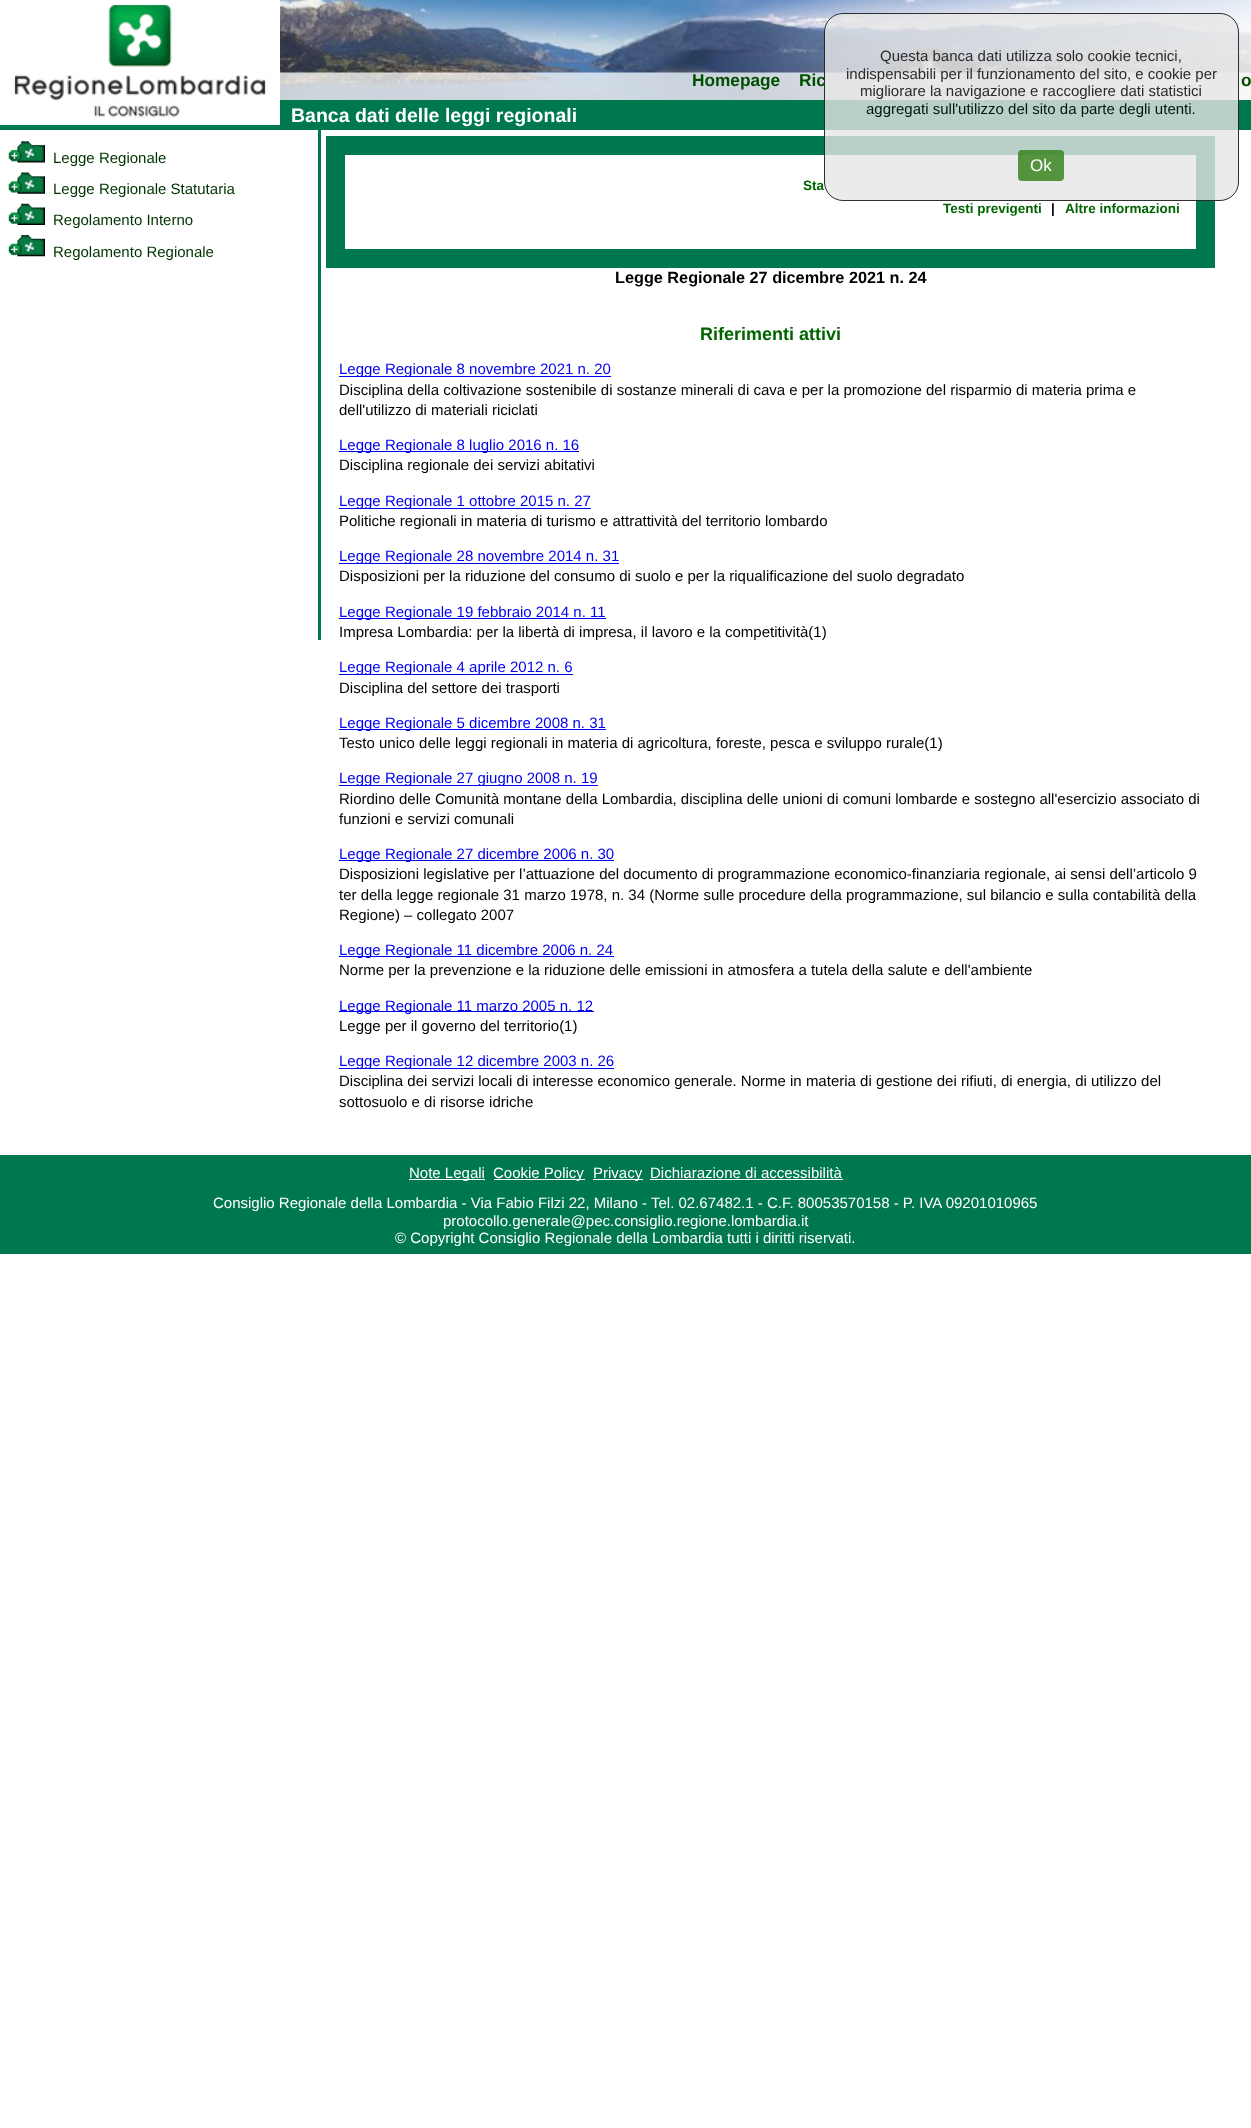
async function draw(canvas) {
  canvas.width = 1251
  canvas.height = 2128
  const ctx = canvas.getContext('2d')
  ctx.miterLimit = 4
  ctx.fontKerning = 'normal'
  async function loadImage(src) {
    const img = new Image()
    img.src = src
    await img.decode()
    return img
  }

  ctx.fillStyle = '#fff'
  ctx.fillRect(0, 0, 1251, 2128)
  ctx.drawImage(await loadImage('image0.png'), 280, 0, 971, 100)
  ctx.font = 'bold 17.25px Liberation Sans'
  ctx.fillStyle = '#004f00'
  ctx.fillText('Ric', 799, 86)
  ctx.fillStyle = '#00784d'
  ctx.fillRect(0, 100, 1251, 30)
  ctx.fillRect(326, 136, 889, 132)
  ctx.fillStyle = '#fff'
  ctx.fillRect(345, 155, 851, 94)
  ctx.font = 'bold 13.5px Liberation Sans'
  ctx.fillStyle = '#006500'
  ctx.fillText('Sta', 803, 190)
  ctx.fillStyle = '#e6e6e6cc'
  ctx.beginPath()
  ctx.roundRect(824, 13, 415, 188, 19)
  ctx.fill()
  ctx.beginPath()
  ctx.roundRect(824.5, 13.5, 414, 187, 18.5)
  ctx.strokeStyle = '#000000cc'
  ctx.stroke()
  ctx.font = '15px Liberation Sans'
  ctx.fillStyle = '#2b2b2c'
  ctx.fillText('Questa banca dati utilizza solo cookie tecnici,', 880, 61)
  ctx.fillText('indispensabili per il funzionamento del sito, e cookie per', 846, 79)
  ctx.fillText('migliorare la navigazione e raccogliere dati statistici', 860, 96)
  ctx.fillStyle = '#00180f'
  ctx.fillText('aggregati sull\'utilizzo del sito da parte degli utenti.', 866, 114)
  ctx.fillStyle = '#2f7e14cc'
  ctx.beginPath()
  ctx.roundRect(1018, 150, 46, 31, 4)
  ctx.fill()
  ctx.font = '17px Liberation Sans'
  ctx.fillStyle = '#fff'
  ctx.fillText('Ok', 1030, 171)
  ctx.drawImage(await loadImage('image1.png'), 0, 0, 280, 125)
  ctx.font = 'bold 17.25px Liberation Sans'
  ctx.fillStyle = '#004f00'
  ctx.fillText('Homepage', 692, 86)
  ctx.fillText('o', 1241, 86)
  ctx.font = 'bold 19.5px Liberation Sans'
  ctx.fillStyle = '#fff'
  ctx.fillText('Banca dati delle leggi regionali', 291, 122)
  ctx.fillStyle = '#00784d'
  ctx.fillRect(318, 130, 3, 510)
  ctx.drawImage(await loadImage('image2.png'), 8, 141, 37, 22)
  ctx.font = '15px Liberation Sans'
  ctx.fillStyle = '#030'
  ctx.fillText('Legge Regionale', 53, 163)
  ctx.drawImage(await loadImage('image3.png'), 8, 172, 37, 22)
  ctx.fillText('Legge Regionale Statutaria', 53, 194)
  ctx.drawImage(await loadImage('image4.png'), 8, 203, 37, 22)
  ctx.fillText('Regolamento Interno', 53, 225)
  ctx.drawImage(await loadImage('image5.png'), 8, 234, 37, 23)
  ctx.fillText('Regolamento Regionale', 53, 257)
  ctx.font = 'bold 13.5px Liberation Sans'
  ctx.fillStyle = '#006500'
  ctx.fillText('Testi previgenti', 943, 213)
  ctx.fillStyle = '#000'
  ctx.fillText('|', 1051, 213)
  ctx.fillStyle = '#006500'
  ctx.fillText('Altre informazioni', 1065, 213)
  ctx.font = 'bold 16.25px Liberation Sans'
  ctx.fillStyle = '#000'
  ctx.fillText('Legge Regionale 27 dicembre 2021 n. 24', 615, 283)
  ctx.font = 'bold 18px Liberation Sans'
  ctx.fillStyle = '#006500'
  ctx.fillText('Riferimenti attivi', 700, 340)
  ctx.fillStyle = '#00e'
  ctx.fillRect(339, 376, 272, 1)
  ctx.font = '15px Liberation Sans'
  ctx.fillText('Legge Regionale 8 novembre 2021 n. 20', 339, 374)
  ctx.fillStyle = '#000'
  ctx.fillText('Disciplina della coltivazione sostenibile di sostanze minerali di cava e per la promozione del risparmio di materia prima e', 339, 395)
  ctx.fillText('dell\'utilizzo di materiali riciclati', 339, 415)
  ctx.fillStyle = '#00e'
  ctx.fillRect(339, 451, 240, 1)
  ctx.fillText('Legge Regionale 8 luglio 2016 n. 16', 339, 450)
  ctx.fillStyle = '#000'
  ctx.fillText('Disciplina regionale dei servizi abitativi', 339, 470)
  ctx.fillStyle = '#00e'
  ctx.fillRect(339, 508, 252, 1)
  ctx.fillText('Legge Regionale 1 ottobre 2015 n. 27', 339, 506)
  ctx.fillStyle = '#000'
  ctx.fillText('Politiche regionali in materia di turismo e attrattività del territorio lombardo', 339, 526)
  ctx.fillStyle = '#00e'
  ctx.fillRect(339, 563, 280, 1)
  ctx.fillText('Legge Regionale 28 novembre 2014 n. 31', 339, 561)
  ctx.fillStyle = '#000'
  ctx.fillText('Disposizioni per la riduzione del consumo di suolo e per la riqualificazione del suolo degradato', 339, 581)
  ctx.fillStyle = '#00e'
  ctx.fillRect(339, 618, 267, 1)
  ctx.fillText('Legge Regionale 19 febbraio 2014 n. 11', 339, 617)
  ctx.fillStyle = '#000'
  ctx.fillText('Impresa Lombardia: per la libertà di impresa, il lavoro e la competitività(1)', 339, 637)
  ctx.fillStyle = '#00e'
  ctx.fillRect(339, 674, 234, 1)
  ctx.fillText('Legge Regionale 4 aprile 2012 n. 6', 339, 672)
  ctx.fillStyle = '#000'
  ctx.fillText('Disciplina del settore dei trasporti', 339, 693)
  ctx.fillStyle = '#00e'
  ctx.fillRect(339, 729, 267, 1)
  ctx.fillText('Legge Regionale 5 dicembre 2008 n. 31', 339, 728)
  ctx.fillStyle = '#000'
  ctx.fillText('Testo unico delle leggi regionali in materia di agricoltura, foreste, pesca e sviluppo rurale(1)', 339, 748)
  ctx.fillStyle = '#00e'
  ctx.fillRect(339, 785, 259, 1)
  ctx.fillText('Legge Regionale 27 giugno 2008 n. 19', 339, 783)
  ctx.fillStyle = '#000'
  ctx.fillText('Riordino delle Comunità montane della Lombardia, disciplina delle unioni di comuni lombarde e sostegno all\'esercizio associato di', 339, 804)
  ctx.fillText('funzioni e servizi comunali', 339, 824)
  ctx.fillStyle = '#00e'
  ctx.fillRect(339, 860, 275, 1)
  ctx.fillText('Legge Regionale 27 dicembre 2006 n. 30', 339, 859)
  ctx.fillStyle = '#000'
  ctx.fillText('Disposizioni legislative per l’attuazione del documento di programmazione economico-finanziaria regionale, ai sensi dell’articolo 9', 339, 879)
  ctx.fillText('ter della legge regionale 31 marzo 1978, n. 34 (Norme sulle procedure della programmazione, sul bilancio e sulla contabilità della', 339, 900)
  ctx.fillText('Regione) – collegato 2007', 339, 920)
  ctx.fillStyle = '#00e'
  ctx.fillRect(339, 956, 275, 1)
  ctx.fillText('Legge Regionale 11 dicembre 2006 n. 24', 339, 955)
  ctx.fillStyle = '#000'
  ctx.fillText('Norme per la prevenzione e la riduzione delle emissioni in atmosfera a tutela della salute e dell\'ambiente', 339, 975)
  ctx.fillStyle = '#00e'
  ctx.fillRect(339, 1011, 255, 1)
  ctx.fillText('Legge Regionale 11 marzo 2005 n. 12', 339, 1011)
  ctx.fillStyle = '#000'
  ctx.fillText('Legge per il governo del territorio(1)', 339, 1031)
  ctx.fillStyle = '#00e'
  ctx.fillRect(339, 1068, 275, 1)
  ctx.fillText('Legge Regionale 12 dicembre 2003 n. 26', 339, 1066)
  ctx.fillStyle = '#000'
  ctx.fillText('Disciplina dei servizi locali di interesse economico generale. Norme in materia di gestione dei rifiuti, di energia, di utilizzo del', 339, 1086)
  ctx.fillText('sottosuolo e di risorse idriche', 339, 1107)
  ctx.fillStyle = '#00784d'
  ctx.fillRect(0, 1155, 1251, 99)
  ctx.fillStyle = '#fff'
  ctx.fillRect(409, 1179, 76, 1)
  ctx.fillText('Note Legali', 409, 1178)
  ctx.fillRect(494, 1179, 91, 1)
  ctx.fillText('Cookie Policy', 493, 1178)
  ctx.fillRect(593, 1179, 50, 1)
  ctx.fillText('Privacy', 593, 1178)
  ctx.fillText('Dichiarazione di accessibilità', 650, 1178)
  ctx.fillRect(650, 1179, 193, 1)
  ctx.fillText('Consiglio Regionale della Lombardia - Via Fabio Filzi 22, Milano - Tel. 02.67482.1 - C.F. 80053570158 - P. IVA 09201010965', 213, 1208)
  ctx.fillText('protocollo.generale@pec.consiglio.regione.lombardia.it', 443, 1226)
  ctx.fillText('© Copyright Consiglio Regionale della Lombardia tutti i diritti riservati.', 395, 1243)
}

draw(document.querySelector('canvas'))
